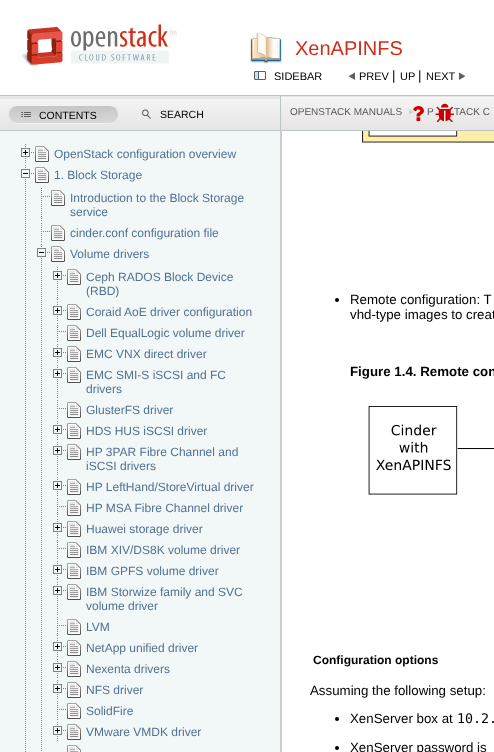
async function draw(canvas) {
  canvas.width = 494
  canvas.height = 752
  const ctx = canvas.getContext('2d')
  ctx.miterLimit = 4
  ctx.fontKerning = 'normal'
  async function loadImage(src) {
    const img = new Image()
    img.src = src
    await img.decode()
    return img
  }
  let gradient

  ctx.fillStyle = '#fff'
  ctx.fillRect(0, 0, 494, 752)
  ctx.fillStyle = '#e5e5e5'
  ctx.fillRect(280, 96, 214, 1)
  ctx.fillStyle = '#bbc4c5'
  ctx.fillRect(280, 92, 1, 38)
  ctx.fillStyle = '#fff'
  ctx.fillRect(280, 92, 1, 3)
  ctx.drawImage(await loadImage('image0.png'), 250, 33, 32, 31)
  ctx.fillStyle = '#bbc4c5'
  ctx.fillRect(0, 95, 494, 1)
  ctx.drawImage(await loadImage('image1.png'), 21, 24, 156, 42)
  ctx.font = '20px Liberation Sans'
  ctx.fillStyle = '#cf2f19'
  ctx.fillText('XenAPINFS', 295, 55)
  ctx.drawImage(await loadImage('image2.png'), 254, 71, 12, 9)
  ctx.font = '11px Liberation Sans'
  ctx.fillStyle = '#000'
  ctx.fillText('SIDEBAR', 274, 80)
  ctx.drawImage(await loadImage('image3.png'), 348, 72, 7, 8)
  ctx.fillText('PREV', 359, 80)
  ctx.font = '13.3px Liberation Sans'
  ctx.fillText('|', 392, 80)
  ctx.font = '11px Liberation Sans'
  ctx.fillText('UP', 400, 80)
  ctx.font = '13.3px Liberation Sans'
  ctx.fillText('|', 418, 80)
  ctx.font = '11px Liberation Sans'
  ctx.fillText('NEXT', 426, 80)
  ctx.drawImage(await loadImage('image4.png'), 459, 72, 7, 8)
  ctx.fillStyle = '#f2f7f7'
  ctx.fillRect(0, 131, 280, 621)
  gradient = ctx.createLinearGradient(0, 99, 0, 130)
  gradient.addColorStop(0, '#f4f4f4')
  gradient.addColorStop(1, '#e6e4e5')
  ctx.fillStyle = gradient
  ctx.fillRect(0, 99, 280, 31)
  ctx.fillStyle = '#e5e5e5'
  ctx.fillRect(0, 96, 280, 3)
  ctx.save()
  ctx.beginPath()
  ctx.roundRect(8, 105, 111, 19, 9.5)
  ctx.clip()
  gradient = ctx.createLinearGradient(9, 106, 9, 123)
  gradient.addColorStop(0, '#c6c6c6')
  gradient.addColorStop(1, '#d8d8d8')
  ctx.fillStyle = gradient
  ctx.fillRect(8, 106, 111, 17)
  ctx.restore()
  ctx.beginPath()
  ctx.roundRect(8.5, 105.5, 110, 18, 9)
  ctx.strokeStyle = '#f1f1f1'
  ctx.stroke()
  ctx.drawImage(await loadImage('image5.png'), 21, 112, 10, 5)
  ctx.font = '10.5px Liberation Sans'
  ctx.fillStyle = '#000'
  ctx.fillText('CONTENTS', 39, 119)
  ctx.drawImage(await loadImage('image6.png'), 142, 109, 9, 10)
  ctx.fillText('SEARCH', 160, 118)
  ctx.fillStyle = '#bbc4c5'
  ctx.fillRect(0, 130, 494, 1)
  ctx.fillStyle = '#ccc'
  ctx.fillRect(280, 130, 2, 622)
  ctx.drawImage(await loadImage('image7.png'), 25, 144, 1, 19)
  ctx.drawImage(await loadImage('image8.png'), 21, 148, 13, 9)
  ctx.drawImage(await loadImage('image9.png'), 35, 146, 14, 16)
  ctx.font = '12px Liberation Sans'
  ctx.fillStyle = '#517291'
  ctx.fillText('OpenStack configuration overview', 54, 158)
  ctx.drawImage(await loadImage('image10.png'), 25, 165, 1, 587)
  ctx.drawImage(await loadImage('image11.png'), 21, 169, 13, 9)
  ctx.drawImage(await loadImage('image9.png'), 35, 167, 14, 16)
  ctx.fillText('1. Block Storage', 54, 179)
  ctx.drawImage(await loadImage('image12.png'), 41, 188, 9, 33)
  ctx.drawImage(await loadImage('image9.png'), 51, 190, 14, 16)
  ctx.fillText('Introduction to the Block Storage', 70, 202)
  ctx.fillText('service', 70, 216)
  ctx.drawImage(await loadImage('image13.png'), 41, 223, 9, 19)
  ctx.drawImage(await loadImage('image9.png'), 51, 225, 14, 16)
  ctx.fillText('cinder.conf configuration file', 70, 237)
  ctx.drawImage(await loadImage('image14.png'), 41, 244, 1, 507)
  ctx.drawImage(await loadImage('image11.png'), 37, 248, 13, 9)
  ctx.drawImage(await loadImage('image9.png'), 51, 246, 14, 16)
  ctx.fillText('Volume drivers', 70, 258)
  ctx.drawImage(await loadImage('image15.png'), 57, 267, 1, 33)
  ctx.drawImage(await loadImage('image8.png'), 53, 271, 13, 9)
  ctx.drawImage(await loadImage('image9.png'), 67, 269, 14, 16)
  ctx.fillText('Ceph RADOS Block Device', 86, 281)
  ctx.fillText('(RBD)', 86, 295)
  ctx.drawImage(await loadImage('image7.png'), 57, 302, 1, 19)
  ctx.drawImage(await loadImage('image8.png'), 53, 306, 13, 9)
  ctx.drawImage(await loadImage('image9.png'), 67, 304, 14, 16)
  ctx.fillText('Coraid AoE driver configuration', 86, 316)
  ctx.drawImage(await loadImage('image13.png'), 57, 323, 9, 19)
  ctx.drawImage(await loadImage('image9.png'), 67, 325, 14, 16)
  ctx.fillText('Dell EqualLogic volume driver', 86, 337)
  ctx.drawImage(await loadImage('image7.png'), 57, 344, 1, 19)
  ctx.drawImage(await loadImage('image8.png'), 53, 348, 13, 9)
  ctx.drawImage(await loadImage('image9.png'), 67, 346, 14, 16)
  ctx.fillText('EMC VNX direct driver', 86, 358)
  ctx.drawImage(await loadImage('image15.png'), 57, 365, 1, 33)
  ctx.drawImage(await loadImage('image8.png'), 53, 369, 13, 9)
  ctx.drawImage(await loadImage('image9.png'), 67, 367, 14, 16)
  ctx.fillText('EMC SMI-S iSCSI and FC', 86, 379)
  ctx.fillText('drivers', 86, 393)
  ctx.drawImage(await loadImage('image13.png'), 57, 400, 9, 19)
  ctx.drawImage(await loadImage('image9.png'), 67, 402, 14, 16)
  ctx.fillText('GlusterFS driver', 86, 414)
  ctx.drawImage(await loadImage('image7.png'), 57, 421, 1, 19)
  ctx.drawImage(await loadImage('image8.png'), 53, 425, 13, 9)
  ctx.drawImage(await loadImage('image9.png'), 67, 423, 14, 16)
  ctx.fillText('HDS HUS iSCSI driver', 86, 435)
  ctx.drawImage(await loadImage('image15.png'), 57, 442, 1, 33)
  ctx.drawImage(await loadImage('image8.png'), 53, 446, 13, 9)
  ctx.drawImage(await loadImage('image9.png'), 67, 444, 14, 16)
  ctx.fillText('HP 3PAR Fibre Channel and', 86, 456)
  ctx.fillText('iSCSI drivers', 86, 470)
  ctx.drawImage(await loadImage('image7.png'), 57, 477, 1, 19)
  ctx.drawImage(await loadImage('image8.png'), 53, 481, 13, 9)
  ctx.drawImage(await loadImage('image9.png'), 67, 479, 14, 16)
  ctx.fillText('HP LeftHand/StoreVirtual driver', 86, 491)
  ctx.drawImage(await loadImage('image13.png'), 57, 498, 9, 19)
  ctx.drawImage(await loadImage('image9.png'), 67, 500, 14, 16)
  ctx.fillText('HP MSA Fibre Channel driver', 86, 512)
  ctx.drawImage(await loadImage('image7.png'), 57, 519, 1, 19)
  ctx.drawImage(await loadImage('image8.png'), 53, 523, 13, 9)
  ctx.drawImage(await loadImage('image9.png'), 67, 521, 14, 16)
  ctx.fillText('Huawei storage driver', 86, 533)
  ctx.drawImage(await loadImage('image13.png'), 57, 540, 9, 19)
  ctx.drawImage(await loadImage('image9.png'), 67, 542, 14, 16)
  ctx.fillText('IBM XIV/DS8K volume driver', 86, 554)
  ctx.drawImage(await loadImage('image7.png'), 57, 561, 1, 19)
  ctx.drawImage(await loadImage('image8.png'), 53, 565, 13, 9)
  ctx.drawImage(await loadImage('image9.png'), 67, 563, 14, 16)
  ctx.fillText('IBM GPFS volume driver', 86, 575)
  ctx.drawImage(await loadImage('image15.png'), 57, 582, 1, 33)
  ctx.drawImage(await loadImage('image8.png'), 53, 586, 13, 9)
  ctx.drawImage(await loadImage('image9.png'), 67, 584, 14, 16)
  ctx.fillText('IBM Storwize family and SVC', 86, 596)
  ctx.fillText('volume driver', 86, 610)
  ctx.drawImage(await loadImage('image13.png'), 57, 617, 9, 19)
  ctx.drawImage(await loadImage('image9.png'), 67, 619, 14, 16)
  ctx.fillText('LVM', 86, 631)
  ctx.drawImage(await loadImage('image7.png'), 57, 638, 1, 19)
  ctx.drawImage(await loadImage('image8.png'), 53, 642, 13, 9)
  ctx.drawImage(await loadImage('image9.png'), 67, 640, 14, 16)
  ctx.fillText('NetApp unified driver', 86, 652)
  ctx.drawImage(await loadImage('image7.png'), 57, 659, 1, 19)
  ctx.drawImage(await loadImage('image8.png'), 53, 663, 13, 9)
  ctx.drawImage(await loadImage('image9.png'), 67, 661, 14, 16)
  ctx.fillText('Nexenta drivers', 86, 673)
  ctx.drawImage(await loadImage('image7.png'), 57, 680, 1, 19)
  ctx.drawImage(await loadImage('image8.png'), 53, 684, 13, 9)
  ctx.drawImage(await loadImage('image9.png'), 67, 682, 14, 16)
  ctx.fillText('NFS driver', 86, 694)
  ctx.drawImage(await loadImage('image13.png'), 57, 701, 9, 19)
  ctx.drawImage(await loadImage('image9.png'), 67, 703, 14, 16)
  ctx.fillText('SolidFire', 86, 715)
  ctx.drawImage(await loadImage('image7.png'), 57, 722, 1, 19)
  ctx.drawImage(await loadImage('image8.png'), 53, 726, 13, 9)
  ctx.drawImage(await loadImage('image9.png'), 67, 724, 14, 16)
  ctx.fillText('VMware VMDK driver', 86, 736)
  ctx.drawImage(await loadImage('image16.png'), 67, 745, 14, 7)
  gradient = ctx.createLinearGradient(280, 97, 280, 130)
  gradient.addColorStop(0, '#f4f4f4')
  gradient.addColorStop(1, '#e6e4e5')
  ctx.fillStyle = gradient
  ctx.fillRect(281, 97, 213, 33)
  ctx.font = '10px Liberation Sans'
  ctx.fillStyle = '#575757'
  ctx.fillText('OPENSTACK MANUALS', 290, 115)
  ctx.drawImage(await loadImage('image19.png'), 409, 109, 5, 6)
  ctx.drawImage(await loadImage('image17.png'), 413, 106, 11, 15)
  ctx.fillText('TACK C', 454, 115)
  ctx.drawImage(await loadImage('image18.png'), 435, 103, 20, 20)
  ctx.fillText('P', 427, 115)
  ctx.drawImage(await loadImage('image20.png'), 362, 131, 132, 12)
  ctx.fillStyle = '#000'
  ctx.beginPath()
  ctx.arc(337, 300, 2, 0, 2 * Math.PI)
  ctx.fill()
  ctx.font = '13.3px Liberation Sans'
  ctx.fillText('Remote configuration: T', 350, 304)
  ctx.fillText('vhd-type images to creat', 350, 319)
  ctx.font = 'bold 13.3px Liberation Sans'
  ctx.fillText('Figure 1.4. Remote con', 350, 376)
  ctx.drawImage(await loadImage('image21.png'), 368, 406, 126, 89)
  ctx.font = 'bold 12px Liberation Sans'
  ctx.fillText('Configuration options', 313, 664)
  ctx.font = '13.3px Liberation Sans'
  ctx.fillText('Assuming the following setup:', 310, 695)
  ctx.beginPath()
  ctx.arc(337, 719, 2, 0, 2 * Math.PI)
  ctx.fill()
  ctx.fillText('XenServer box at', 350, 723)
  ctx.font = '13.3px DejaVu Sans Mono'
  ctx.fillText('10.2.', 457, 723)
  ctx.beginPath()
  ctx.arc(337, 748, 2, 0, 2 * Math.PI)
  ctx.fill()
  ctx.font = '13.3px Liberation Sans'
  ctx.fillText('XenServer password is', 350, 752)
}

draw(document.querySelector('canvas'))
